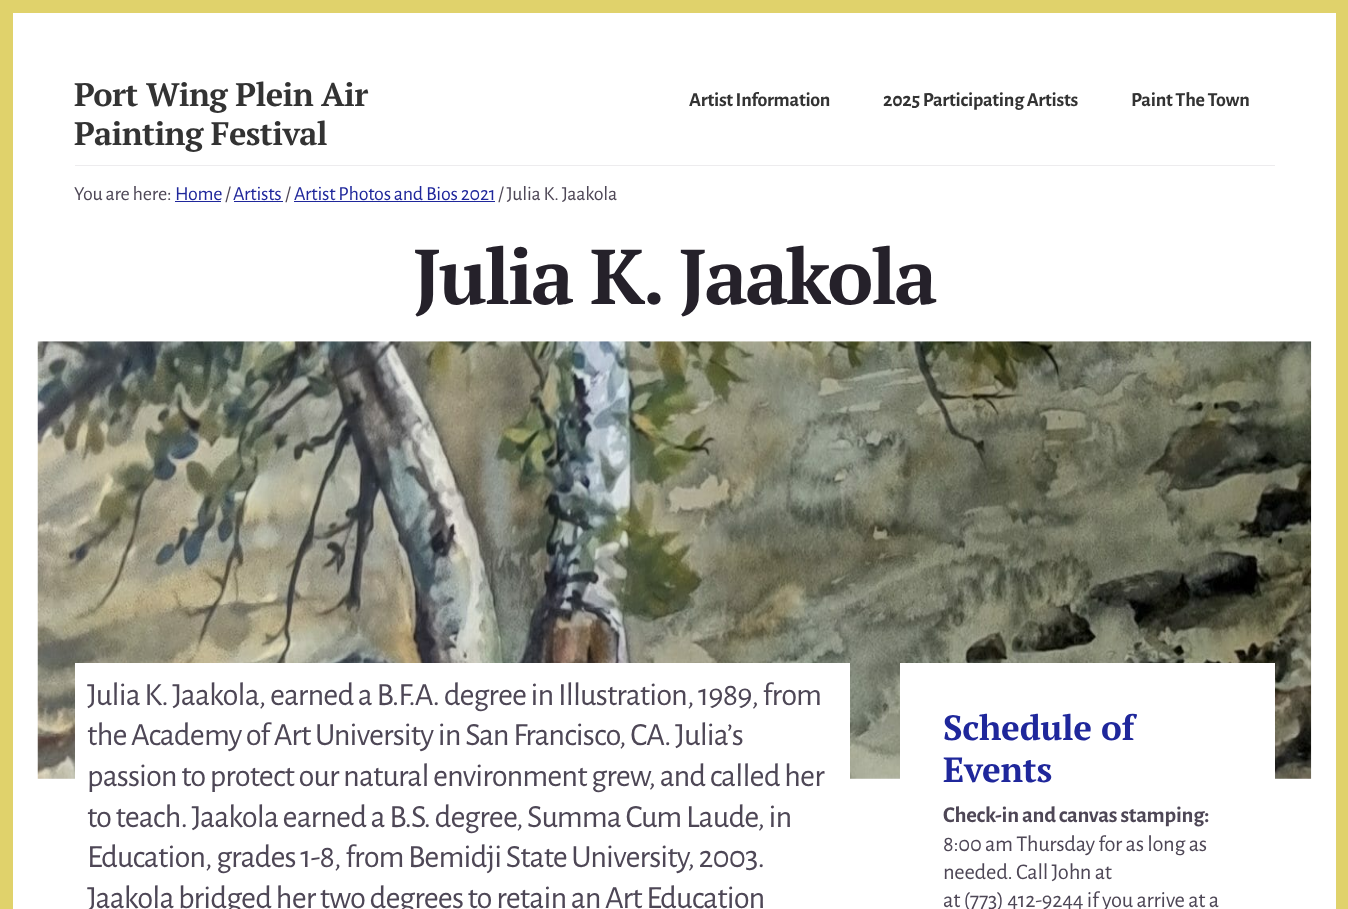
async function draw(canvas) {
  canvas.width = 1348
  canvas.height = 909
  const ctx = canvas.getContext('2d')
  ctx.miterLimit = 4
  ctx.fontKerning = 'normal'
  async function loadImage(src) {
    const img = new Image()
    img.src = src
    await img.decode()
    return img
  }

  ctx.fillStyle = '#e0d26b'
  ctx.fillRect(0, 0, 1348, 909)
  ctx.fillStyle = '#fff'
  ctx.fillRect(13, 13, 1323, 896)
  ctx.fillStyle = '#edecee'
  ctx.fillRect(75, 165, 1200, 1)
  ctx.letterSpacing = '-0.6px'
  ctx.font = 'bold 32.5px PT Serif'
  ctx.fillStyle = '#333'
  ctx.fillText('Port Wing Plein Air', 74, 106)
  ctx.fillText('Painting Festival', 74, 145)
  ctx.letterSpacing = '-0.25px'
  ctx.font = 'bold 20px Alegreya Sans'
  ctx.fillText('Artist Information', 689, 106)
  ctx.fillText('2025 Participating Artists', 883, 106)
  ctx.fillText('Paint The Town', 1131, 106)
  ctx.font = '20px Alegreya Sans'
  ctx.fillStyle = '#4e4756'
  ctx.fillText('You are here:', 74, 200)
  ctx.fillStyle = '#1f279b'
  ctx.fillText('Home', 175, 200)
  ctx.fillRect(175, 201, 46, 1)
  ctx.fillStyle = '#4e4756'
  ctx.fillText('/', 225, 200)
  ctx.fillStyle = '#1f279b'
  ctx.fillText('Artists', 233, 200)
  ctx.fillRect(234, 201, 49, 1)
  ctx.fillStyle = '#4e4756'
  ctx.fillText('/', 285, 200)
  ctx.fillStyle = '#1f279b'
  ctx.fillText('Artist Photos and Bios 2021', 294, 200)
  ctx.fillRect(294, 201, 201, 1)
  ctx.fillStyle = '#4e4756'
  ctx.fillText('/ Julia K. Jaakola', 498, 200)
  ctx.letterSpacing = '-2.5px'
  ctx.font = 'bold 77.5px PT Serif'
  ctx.fillStyle = '#25212a'
  ctx.fillText('Julia K. Jaakola', 413, 304)
  ctx.drawImage(await loadImage('image0.png'), 37, 341, 1275, 438)
  ctx.fillStyle = '#fff'
  ctx.fillRect(75, 663, 775, 116)
  ctx.letterSpacing = '-0.88px'
  ctx.font = '32.5px Alegreya Sans'
  ctx.fillStyle = '#4e4756'
  ctx.fillText('Julia K. Jaakola, earned a B.F.A. degree in Illustration, 1989, from', 87, 705)
  ctx.fillText('the Academy of Art University in San Francisco, CA. Julia’s', 87, 745)
  ctx.fillText('passion to protect our natural environment grew, and called her', 87, 786)
  ctx.fillText('to teach. Jaakola earned a B.S. degree, Summa Cum Laude, in', 87, 827)
  ctx.fillText('Education, grades 1-8, from Bemidji State University, 2003.', 87, 867)
  ctx.fillText('Jaakola bridged her two degrees to retain an Art Education', 87, 908)
  ctx.fillStyle = '#fff'
  ctx.fillRect(900, 663, 375, 116)
  ctx.letterSpacing = '-0.25px'
  ctx.font = 'bold 35px PT Serif'
  ctx.fillStyle = '#1f279b'
  ctx.fillText('Schedule of', 943, 740)
  ctx.fillText('Events', 943, 782)
  ctx.font = 'bold 22.5px Alegreya Sans'
  ctx.fillStyle = '#4e4756'
  ctx.fillText('Check-in and canvas stamping:', 943, 822)
  ctx.font = '22.5px Alegreya Sans'
  ctx.fillText('8:00 am Thursday for as long as', 943, 851)
  ctx.fillText('needed. Call John at', 943, 879)
  ctx.fillText('at (773) 412-9244 if you arrive at a', 943, 907)
}

draw(document.querySelector('canvas'))
